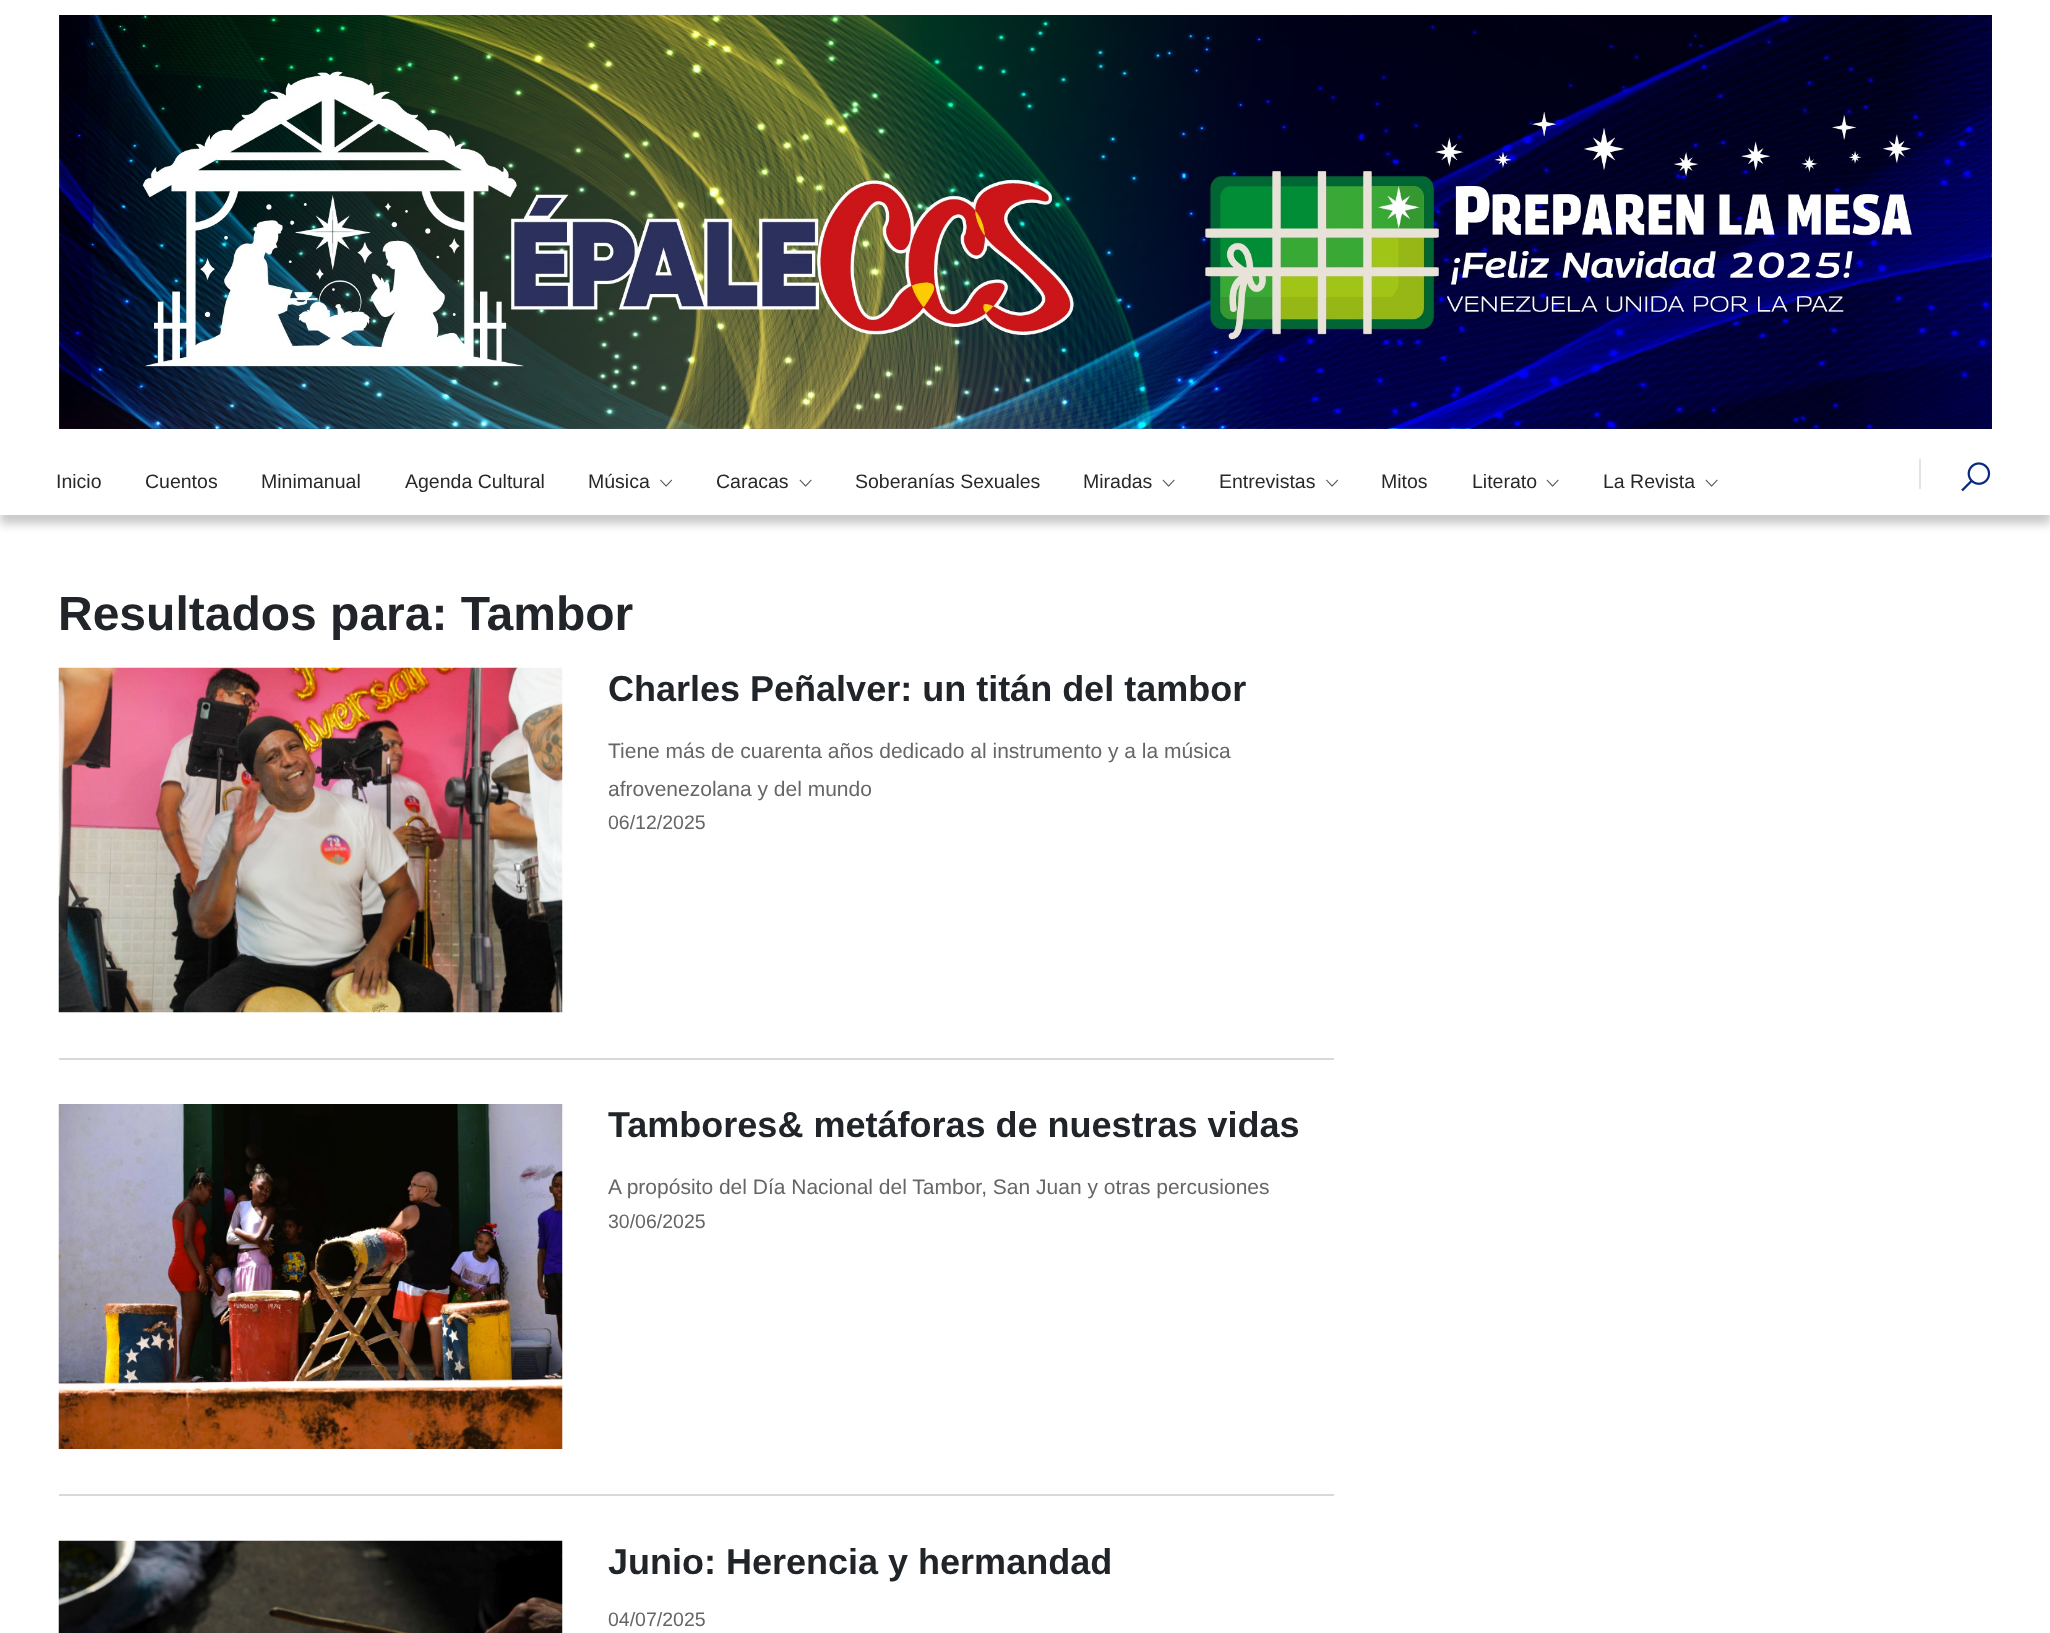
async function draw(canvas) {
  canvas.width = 2050
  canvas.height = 1633
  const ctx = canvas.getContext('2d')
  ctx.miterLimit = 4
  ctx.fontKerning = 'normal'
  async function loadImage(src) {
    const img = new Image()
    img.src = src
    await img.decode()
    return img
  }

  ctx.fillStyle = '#fff'
  ctx.fillRect(0, 0, 2050, 1633)
  ctx.drawImage(await loadImage('image0.png'), 58, 15, 1934, 414)
  ctx.fillStyle = '#00000036'
  ctx.filter = 'blur(5px)'
  ctx.beginPath()
  ctx.rect(0, 453, 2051, 71)
  ctx.fill()
  ctx.filter = 'none'
  ctx.fillStyle = '#fff'
  ctx.fillRect(0, 445, 2050, 70)
  ctx.font = '19.5px Liberation Sans'
  ctx.fillStyle = '#282828'
  ctx.fillText('Inicio', 56, 488)
  ctx.fillText('Cuentos', 145, 488)
  ctx.fillText('Minimanual', 261, 488)
  ctx.fillText('Agenda Cultural', 405, 488)
  ctx.fillText('Música', 588, 488)
  ctx.drawImage(await loadImage('image1.png'), 660, 479, 13, 8)
  ctx.fillText('Caracas', 716, 488)
  ctx.drawImage(await loadImage('image2.png'), 799, 479, 13, 8)
  ctx.fillText('Soberanías Sexuales', 855, 488)
  ctx.fillText('Miradas', 1083, 488)
  ctx.drawImage(await loadImage('image2.png'), 1162, 479, 13, 8)
  ctx.fillText('Entrevistas', 1219, 488)
  ctx.drawImage(await loadImage('image1.png'), 1326, 479, 13, 8)
  ctx.fillText('Mitos', 1381, 488)
  ctx.fillText('Literato', 1472, 488)
  ctx.drawImage(await loadImage('image2.png'), 1546, 479, 13, 8)
  ctx.fillText('La Revista', 1603, 488)
  ctx.drawImage(await loadImage('image2.png'), 1705, 479, 13, 8)
  ctx.fillStyle = '#e4e4e4'
  ctx.fillRect(1919, 459, 2, 30)
  ctx.drawImage(await loadImage('image3.png'), 1961, 462, 30, 30)
  ctx.font = 'bold 48px Liberation Sans'
  ctx.fillStyle = '#212529'
  ctx.fillText('Resultados para: Tambor', 58, 630)
  ctx.fillStyle = '#d9d9d9'
  ctx.fillRect(59, 1058, 1275, 2)
  ctx.drawImage(await loadImage('image4.png'), 58, 667, 505, 346)
  ctx.font = 'bold 36px Liberation Sans'
  ctx.fillStyle = '#212529'
  ctx.fillText('Charles Peñalver: un titán del tambor', 608, 701)
  ctx.font = '21px Liberation Sans'
  ctx.fillStyle = '#666'
  ctx.fillText('Tiene más de cuarenta años dedicado al instrumento y a la música', 608, 758)
  ctx.fillText('afrovenezolana y del mundo', 608, 796)
  ctx.font = '19.5px Liberation Sans'
  ctx.fillText('06/12/2025', 608, 829)
  ctx.fillStyle = '#d9d9d9'
  ctx.fillRect(59, 1494, 1275, 2)
  ctx.drawImage(await loadImage('image5.png'), 58, 1104, 505, 345)
  ctx.font = 'bold 36px Liberation Sans'
  ctx.fillStyle = '#212529'
  ctx.fillText('Tambores& metáforas de nuestras vidas', 608, 1137)
  ctx.font = '21px Liberation Sans'
  ctx.fillStyle = '#666'
  ctx.fillText('A propósito del Día Nacional del Tambor, San Juan y otras percusiones', 608, 1194)
  ctx.font = '19.5px Liberation Sans'
  ctx.fillText('30/06/2025', 608, 1228)
  ctx.drawImage(await loadImage('image6.png'), 58, 1540, 505, 93)
  ctx.font = 'bold 36px Liberation Sans'
  ctx.fillStyle = '#212529'
  ctx.fillText('Junio: Herencia y hermandad', 608, 1574)
  ctx.font = '19.5px Liberation Sans'
  ctx.fillStyle = '#666'
  ctx.fillText('04/07/2025', 608, 1626)
}

draw(document.querySelector('canvas'))
